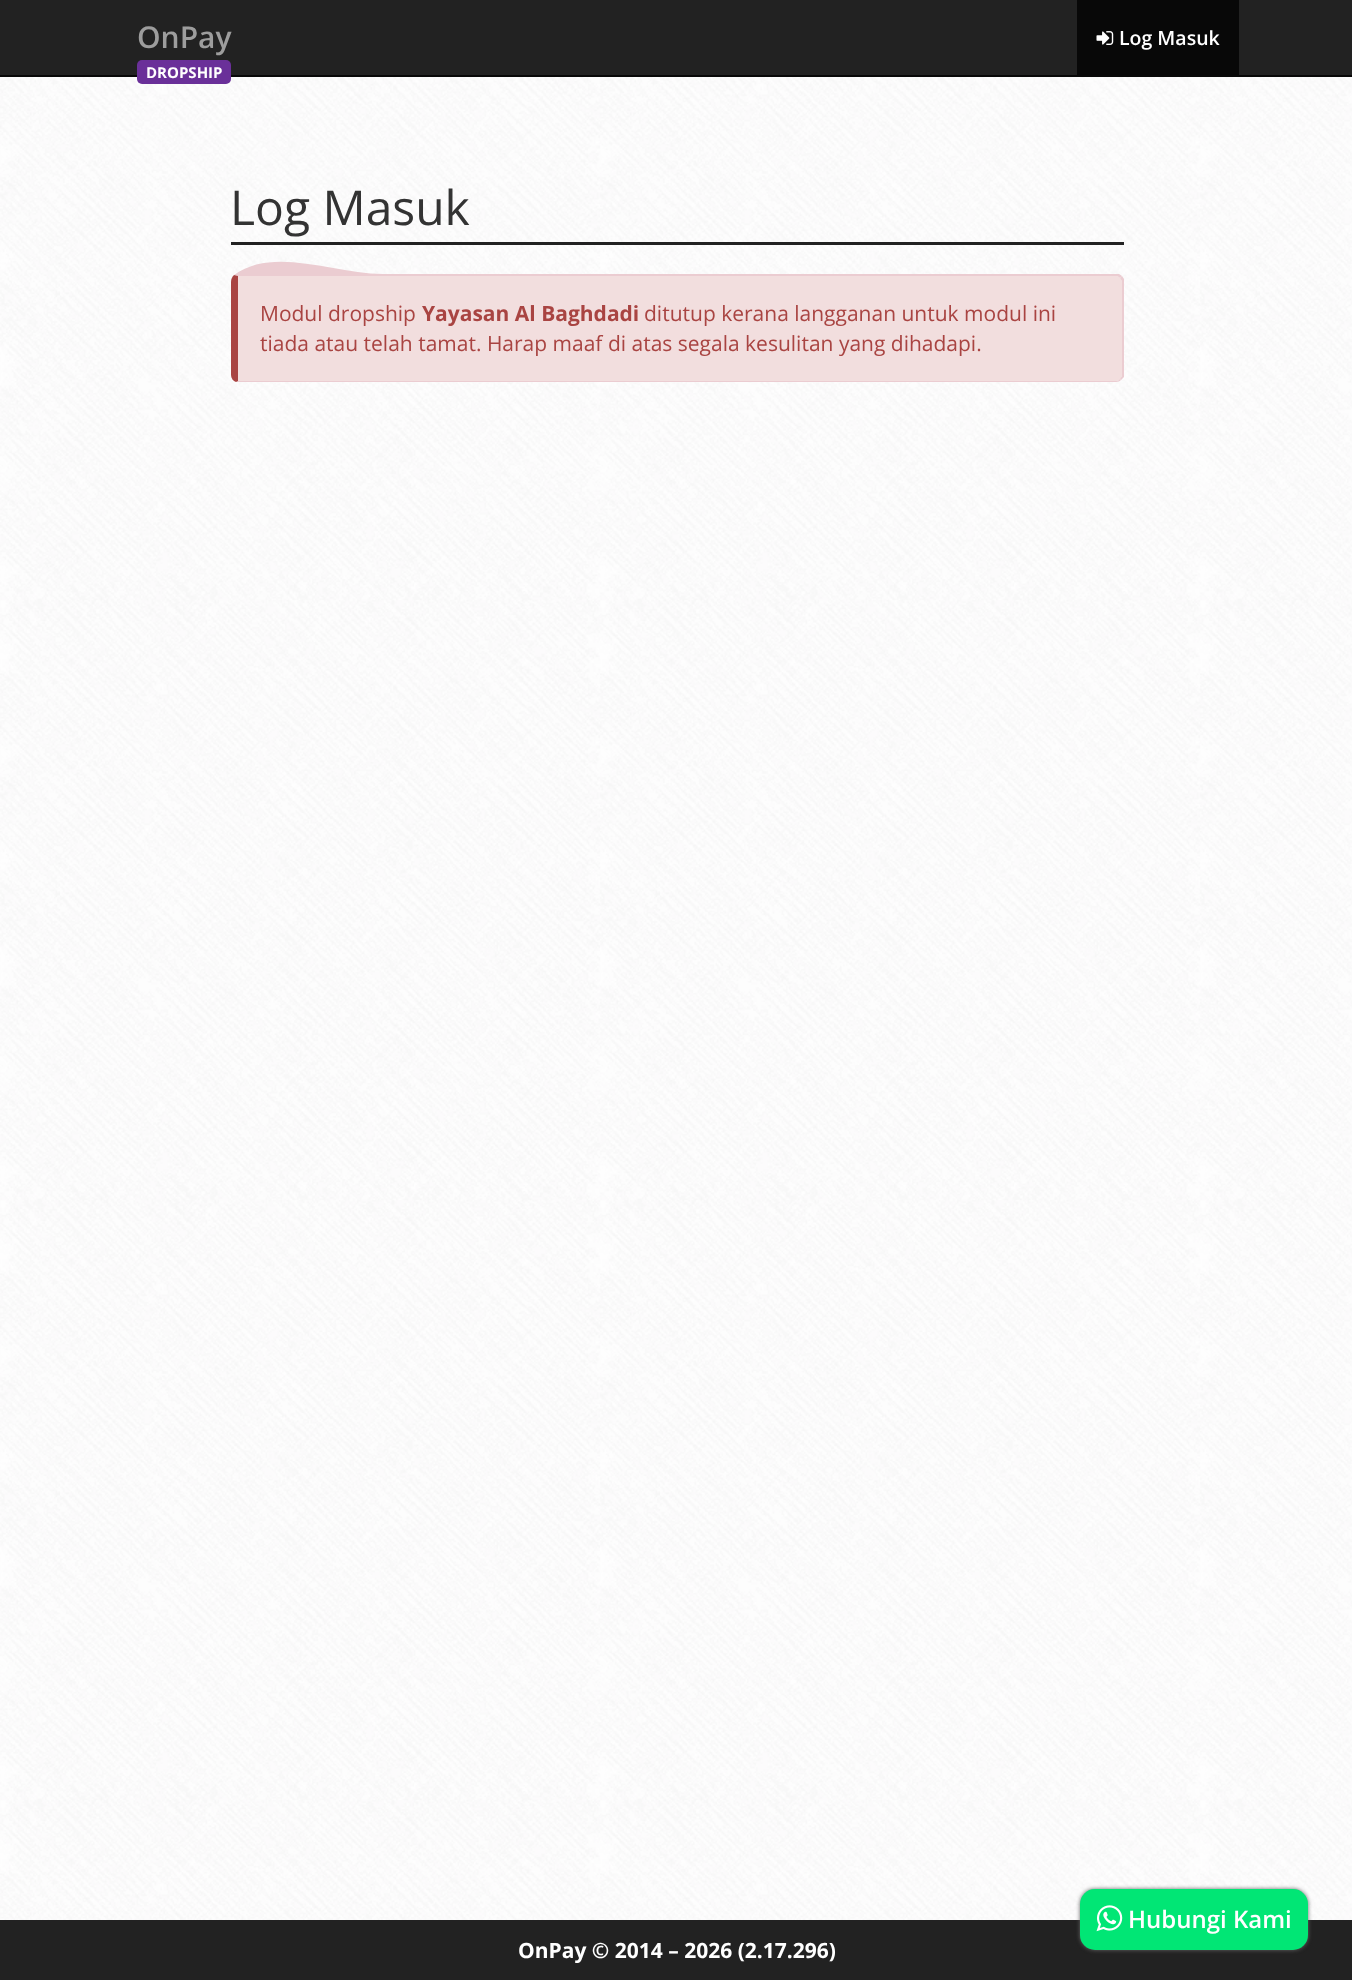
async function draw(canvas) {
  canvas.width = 1352
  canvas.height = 1980
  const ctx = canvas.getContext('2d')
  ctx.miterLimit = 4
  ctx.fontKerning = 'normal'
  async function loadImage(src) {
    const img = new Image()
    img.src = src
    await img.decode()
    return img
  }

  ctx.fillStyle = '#fff'
  ctx.fillRect(0, 0, 1352, 1980)
  ctx.drawImage(await loadImage('image0.png'), 0, 77, 1352, 1843)
  ctx.fillStyle = '#222'
  ctx.fillRect(0, 0, 1352, 75)
  ctx.fillStyle = '#080808'
  ctx.fillRect(0, 75, 1352, 2)
  ctx.font = '600 30px Open Sans'
  ctx.fillStyle = '#9d9d9d'
  ctx.fillText('OnPay', 137, 48)
  ctx.fillStyle = '#6a3099'
  ctx.beginPath()
  ctx.roundRect(137, 60, 94, 24, 5)
  ctx.fill()
  ctx.font = 'bold 15px Open Sans'
  ctx.fillStyle = '#fff'
  ctx.fillText('DROPSHIP', 146, 78)
  ctx.fillStyle = '#080808'
  ctx.fillRect(1077, 0, 162, 75)
  ctx.drawImage(await loadImage('image1.png'), 1096, 31, 18, 14)
  ctx.font = '600 19.5px Open Sans'
  ctx.fillStyle = '#fff'
  ctx.fillText('Log Masuk', 1119, 45)
  ctx.fillStyle = '#222'
  ctx.fillRect(231, 242, 893, 3)
  ctx.font = '48px Open Sans'
  ctx.fillStyle = '#333'
  ctx.fillText('Log Masuk', 230, 225)
  ctx.fillStyle = '#f2dede'
  ctx.beginPath()
  ctx.moveTo(238, 276)
  ctx.lineTo(1116, 276)
  ctx.bezierCurveTo(1119, 276, 1122, 279, 1122, 282)
  ctx.lineTo(1122, 375)
  ctx.bezierCurveTo(1122, 378, 1119, 381, 1116, 381)
  ctx.lineTo(238, 381)
  ctx.closePath()
  ctx.fill()
  ctx.fillStyle = '#ebccd1'
  ctx.beginPath()
  ctx.moveTo(234, 275)
  ctx.bezierCurveTo(275, 246, 333, 274, 383, 274)
  ctx.lineTo(1119, 274)
  ctx.lineTo(1122, 276)
  ctx.lineTo(1120, 278)
  ctx.bezierCurveTo(1119, 277, 1118, 276, 1116, 276)
  ctx.lineTo(238, 276)
  ctx.closePath()
  ctx.fill()
  ctx.beginPath()
  ctx.moveTo(1124, 377)
  ctx.lineTo(1121, 380)
  ctx.lineTo(1120, 379)
  ctx.lineTo(1122, 376)
  ctx.lineTo(1122, 281)
  ctx.lineTo(1120, 278)
  ctx.lineTo(1122, 276)
  ctx.lineTo(1124, 279)
  ctx.closePath()
  ctx.fill()
  ctx.beginPath()
  ctx.moveTo(1121, 380)
  ctx.bezierCurveTo(1120, 381, 1118, 382, 1116, 382)
  ctx.lineTo(238, 382)
  ctx.lineTo(236, 382)
  ctx.lineTo(238, 381)
  ctx.lineTo(1116, 381)
  ctx.bezierCurveTo(1118, 381, 1119, 380, 1120, 379)
  ctx.closePath()
  ctx.fill()
  ctx.fillStyle = '#a94442'
  ctx.beginPath()
  ctx.moveTo(238, 276)
  ctx.lineTo(234, 275)
  ctx.bezierCurveTo(232, 277, 231, 279, 231, 282)
  ctx.lineTo(231, 375)
  ctx.bezierCurveTo(231, 378, 233, 381, 236, 382)
  ctx.lineTo(238, 381)
  ctx.closePath()
  ctx.fill()
  ctx.font = '21px Open Sans'
  ctx.fillText('Modul dropship', 260, 321)
  ctx.font = 'bold 21px Open Sans'
  ctx.fillText('Yayasan Al Baghdadi', 422, 321)
  ctx.font = '21px Open Sans'
  ctx.fillText('ditutup kerana langganan untuk modul ini', 644, 321)
  ctx.fillText('tiada atau telah tamat. Harap maaf di atas segala kesulitan yang dihadapi.', 260, 351)
  ctx.fillStyle = '#222'
  ctx.fillRect(0, 1920, 1352, 60)
  ctx.fillStyle = '#666'
  ctx.filter = 'blur(2px)'
  ctx.beginPath()
  ctx.roundRect(1080, 1889, 228, 61, 15)
  ctx.fill()
  ctx.filter = 'none'
  ctx.fillStyle = '#01e675'
  ctx.beginPath()
  ctx.roundRect(1080, 1889, 228, 61, 15)
  ctx.fill()
  ctx.drawImage(await loadImage('image2.png'), 1096, 1905, 27, 27)
  ctx.font = '600 24px Open Sans'
  ctx.fillStyle = '#fff'
  ctx.fillText('Hubungi Kami', 1128, 1928)
  ctx.font = 'bold 21px Open Sans'
  ctx.fillText('OnPay © 2014 – 2026 (2.17.296)', 518, 1958)
}

draw(document.querySelector('canvas'))
